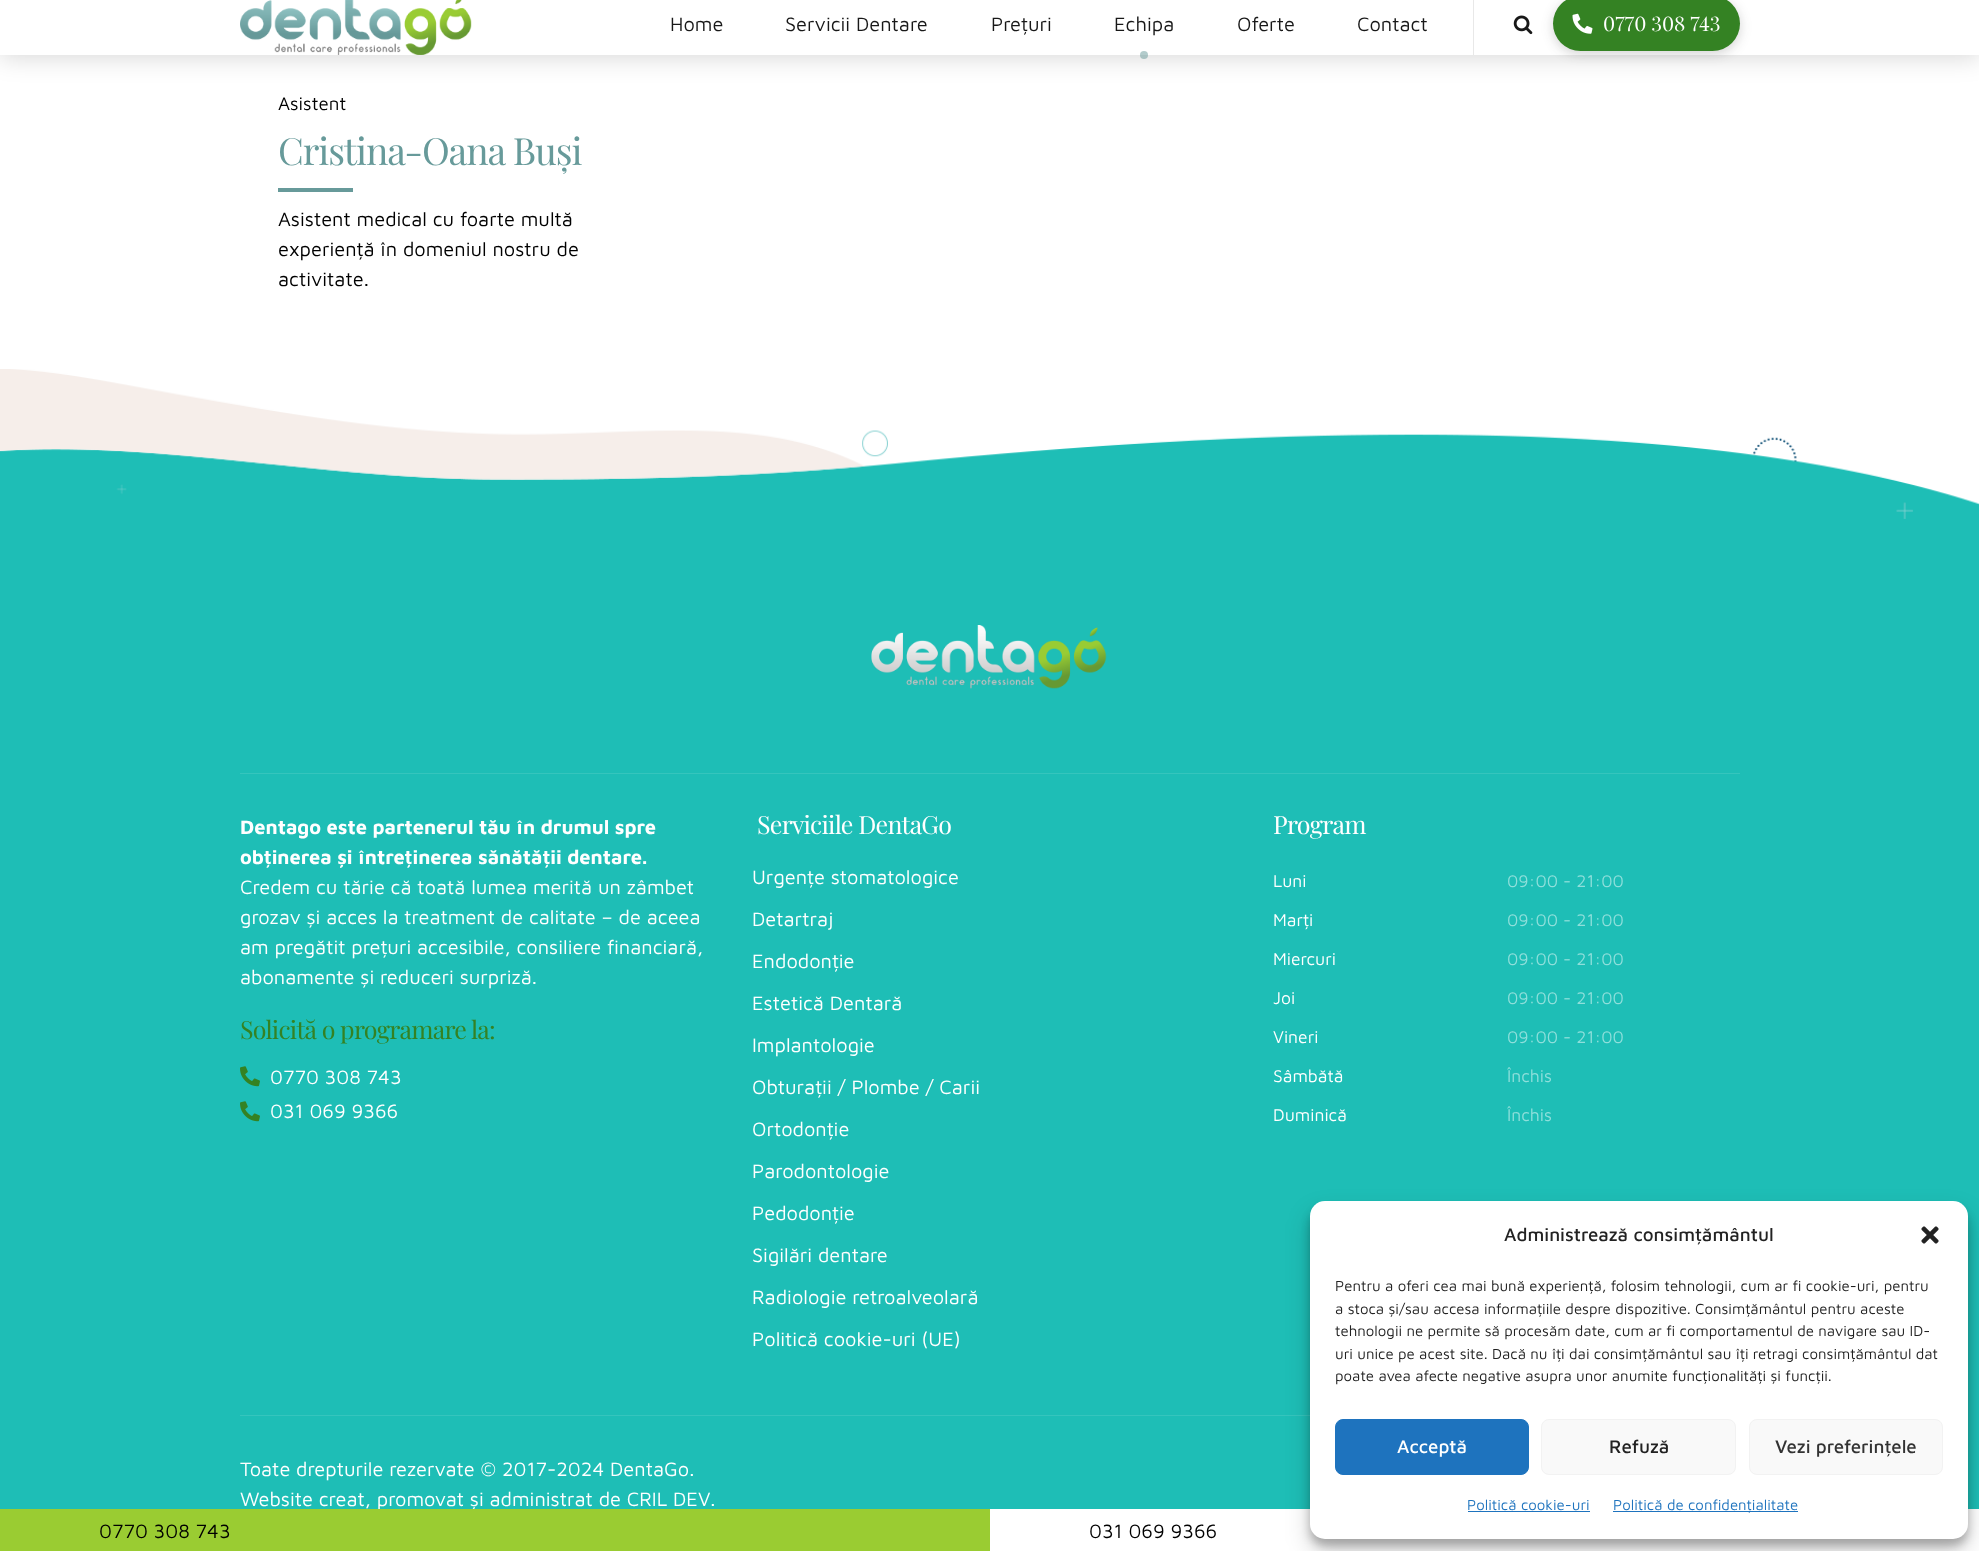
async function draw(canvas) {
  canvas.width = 1979
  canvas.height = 1551
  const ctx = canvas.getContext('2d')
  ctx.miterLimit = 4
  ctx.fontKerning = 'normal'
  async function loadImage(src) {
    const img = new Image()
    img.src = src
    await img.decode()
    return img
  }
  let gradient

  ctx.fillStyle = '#fff'
  ctx.fillRect(0, 0, 1979, 1551)
  ctx.fillStyle = '#00000026'
  ctx.filter = 'blur(12.5px)'
  ctx.beginPath()
  ctx.rect(0, -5, 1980, 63)
  ctx.fill()
  ctx.filter = 'none'
  ctx.fillStyle = '#fff'
  ctx.fillRect(0, 0, 1979, 55)
  ctx.drawImage(await loadImage('image0.png'), 240, 0, 232, 55)
  ctx.font = '20px Maven Pro'
  ctx.fillStyle = '#181818'
  ctx.fillText('Home', 670, 31)
  ctx.fillText('Servicii Dentare', 785, 31)
  ctx.fillText('Prețuri', 991, 31)
  ctx.fillText('Echipa', 1114, 31)
  ctx.fillStyle = '#679a9a80'
  ctx.beginPath()
  ctx.arc(1144, 55, 4, 0, 2 * Math.PI)
  ctx.fill()
  ctx.fillStyle = '#181818'
  ctx.fillText('Oferte', 1237, 31)
  ctx.fillText('Contact', 1357, 31)
  ctx.fillStyle = '#e8e8e8'
  ctx.fillRect(1473, 0, 1, 55)
  ctx.drawImage(await loadImage('image1.png'), 1513, 15, 20, 20)
  ctx.fillStyle = '#22222233'
  ctx.filter = 'blur(6px)'
  ctx.beginPath()
  ctx.roundRect(1553, -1, 187, 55, 27.5)
  ctx.fill()
  ctx.filter = 'none'
  gradient = ctx.createLinearGradient(1553, 24, 1928, 24)
  gradient.addColorStop(0.51, '#348223')
  gradient.addColorStop(1, '#679a9a')
  ctx.fillStyle = gradient
  ctx.beginPath()
  ctx.roundRect(1553, -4, 187, 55, 27.5)
  ctx.fill()
  ctx.drawImage(await loadImage('image2.png'), 1572, 13, 21, 21)
  ctx.font = '20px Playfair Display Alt'
  ctx.fillStyle = '#fff'
  ctx.fillText('0770 308 743', 1603, 31)
  ctx.font = '18.75px Maven Pro'
  ctx.fillStyle = '#000'
  ctx.fillText('Asistent', 278, 110)
  ctx.letterSpacing = '-1.1px'
  ctx.font = '37.5px Playfair Display'
  ctx.fillStyle = '#679a9a'
  ctx.fillText('Cristina-Oana Buși', 278, 165)
  ctx.fillRect(278, 188, 75, 4)
  ctx.letterSpacing = '0px'
  ctx.font = '20px Maven Pro'
  ctx.fillStyle = '#000'
  ctx.fillText('Asistent medical cu foarte multă', 278, 226)
  ctx.fillText('experiență în domeniul nostru de', 278, 256)
  ctx.fillText('activitate.', 278, 286)
  ctx.fillStyle = '#1ebeb6'
  ctx.fillRect(0, 434, 1979, 1075)
  ctx.drawImage(await loadImage('image3.png'), 0, 369, 1979, 150)
  ctx.drawImage(await loadImage('image4.png'), 871, 625, 236, 64)
  ctx.fillStyle = '#35c5bd'
  ctx.fillRect(240, 773, 1500, 1)
  ctx.font = 'bold 20px Maven Pro'
  ctx.fillStyle = '#fff'
  ctx.fillText('Dentago este partenerul tău în drumul spre', 240, 834)
  ctx.fillText('obținerea și întreținerea sănătății dentare.', 240, 864)
  ctx.font = '20px Maven Pro'
  ctx.fillText('Credem cu tărie că toată lumea merită un zâmbet', 240, 894)
  ctx.fillText('grozav și acces la treatment de calitate – de aceea', 240, 924)
  ctx.fillText('am pregătit prețuri accesibile, consiliere financiară,', 240, 954)
  ctx.fillText('abonamente și reduceri surpriză.', 240, 984)
  ctx.letterSpacing = '-0.75px'
  ctx.font = '25px Playfair Display'
  ctx.fillStyle = '#348223'
  ctx.fillText('Solicită o programare la:', 240, 1039)
  ctx.drawImage(await loadImage('image5.png'), 240, 1066, 20, 21)
  ctx.letterSpacing = '0px'
  ctx.font = '20px Maven Pro'
  ctx.fillStyle = '#fff'
  ctx.fillText('0770 308 743', 270, 1084)
  ctx.drawImage(await loadImage('image5.png'), 240, 1101, 20, 21)
  ctx.fillText('031 069 9366', 270, 1118)
  ctx.letterSpacing = '-0.75px'
  ctx.font = '25px Playfair Display'
  ctx.fillText('Serviciile DentaGo', 757, 834)
  ctx.letterSpacing = '0px'
  ctx.font = '20px Maven Pro'
  ctx.fillText('Urgențe stomatologice', 752, 884)
  ctx.fillText('Detartraj', 752, 926)
  ctx.fillText('Endodonție', 752, 968)
  ctx.fillText('Estetică Dentară', 752, 1010)
  ctx.fillText('Implantologie', 752, 1052)
  ctx.fillText('Obturații / Plombe / Carii', 752, 1094)
  ctx.fillText('Ortodonție', 752, 1136)
  ctx.fillText('Parodontologie', 752, 1178)
  ctx.fillText('Pedodonție', 752, 1220)
  ctx.fillText('Sigilări dentare', 752, 1262)
  ctx.fillText('Radiologie retroalveolară', 752, 1304)
  ctx.fillText('Politică cookie-uri (UE)', 752, 1346)
  ctx.letterSpacing = '-0.75px'
  ctx.font = '25px Playfair Display'
  ctx.fillText('Program', 1273, 834)
  ctx.letterSpacing = '0px'
  ctx.font = '17.5px Maven Pro'
  ctx.fillText('Luni', 1273, 887)
  ctx.fillStyle = '#8fdfdb'
  ctx.fillText('09:00 - 21:00', 1507, 887)
  ctx.fillStyle = '#fff'
  ctx.fillText('Marți', 1273, 926)
  ctx.fillStyle = '#8fdfdb'
  ctx.fillText('09:00 - 21:00', 1507, 926)
  ctx.fillStyle = '#fff'
  ctx.fillText('Miercuri', 1273, 965)
  ctx.fillStyle = '#8fdfdb'
  ctx.fillText('09:00 - 21:00', 1507, 965)
  ctx.fillStyle = '#fff'
  ctx.fillText('Joi', 1273, 1004)
  ctx.fillStyle = '#8fdfdb'
  ctx.fillText('09:00 - 21:00', 1507, 1004)
  ctx.fillStyle = '#fff'
  ctx.fillText('Vineri', 1273, 1043)
  ctx.fillStyle = '#8fdfdb'
  ctx.fillText('09:00 - 21:00', 1507, 1043)
  ctx.fillStyle = '#fff'
  ctx.fillText('Sâmbătă', 1273, 1082)
  ctx.fillStyle = '#8fdfdb'
  ctx.fillText('Închis', 1507, 1082)
  ctx.fillStyle = '#fff'
  ctx.fillText('Duminică', 1273, 1121)
  ctx.fillStyle = '#8fdfdb'
  ctx.fillText('Închis', 1507, 1121)
  ctx.fillStyle = '#35c5bd'
  ctx.fillRect(240, 1415, 1070, 1)
  ctx.font = '20px Maven Pro'
  ctx.fillStyle = '#fff'
  ctx.fillText('Toate drepturile rezervate © 2017-2024 DentaGo.', 240, 1476)
  ctx.fillText('Website creat, promovat și administrat de CRIL DEV.', 240, 1506)
  ctx.fillStyle = '#0000003b'
  ctx.filter = 'blur(4px)'
  ctx.beginPath()
  ctx.roundRect(1310, 1209, 658, 337, 15)
  ctx.fill()
  ctx.filter = 'none'
  ctx.fillStyle = '#00000030'
  ctx.filter = 'blur(12.5px)'
  ctx.beginPath()
  ctx.roundRect(1310, 1214, 658, 337, 15)
  ctx.fill()
  ctx.filter = 'none'
  ctx.fillStyle = '#fff'
  ctx.beginPath()
  ctx.roundRect(1310, 1201, 658, 338, 15)
  ctx.fill()
  ctx.font = '500 18.75px Maven Pro'
  ctx.fillStyle = '#222'
  ctx.fillText('Administrează consimțământul', 1504, 1241)
  ctx.drawImage(await loadImage('image6.png'), 1921, 1226, 18, 18)
  ctx.font = '15px Maven Pro'
  ctx.fillText('Pentru a oferi cea mai bună experiență, folosim tehnologii, cum ar fi cookie-uri, pentru', 1335, 1291)
  ctx.fillText('a stoca și/sau accesa informațiile despre dispozitive. Consimțământul pentru aceste', 1335, 1314)
  ctx.fillText('tehnologii ne permite să procesăm date, cum ar fi comportamentul de navigare sau ID-', 1335, 1336)
  ctx.fillText('uri unice pe acest site. Dacă nu îți dai consimțământul sau îți retragi consimțământul dat', 1335, 1359)
  ctx.fillText('poate avea afecte negative asupra unor anumite funcționalități și funcții.', 1335, 1381)
  ctx.fillStyle = '#1e73be'
  ctx.beginPath()
  ctx.roundRect(1335.5, 1419.5, 193, 55, 7.5)
  ctx.fill()
  ctx.strokeStyle = '#1e73be'
  ctx.stroke()
  ctx.font = '500 18.75px Maven Pro'
  ctx.fillStyle = '#fff'
  ctx.fillText('Acceptă', 1397, 1453)
  ctx.fillStyle = '#f9f9f9'
  ctx.beginPath()
  ctx.roundRect(1541.5, 1419.5, 194, 55, 7.5)
  ctx.fill()
  ctx.strokeStyle = '#f2f2f2'
  ctx.stroke()
  ctx.fillStyle = '#222'
  ctx.fillText('Refuză', 1609, 1453)
  ctx.fillStyle = '#f9f9f9'
  ctx.beginPath()
  ctx.roundRect(1749.5, 1419.5, 193, 55, 7.5)
  ctx.fill()
  ctx.stroke()
  ctx.fillStyle = '#333'
  ctx.fillText('Vezi preferințele', 1775, 1453)
  ctx.font = '15px Maven Pro'
  ctx.fillStyle = '#1e73be'
  ctx.fillText('Politică cookie-uri', 1467, 1510)
  ctx.fillRect(1468, 1511, 122, 1)
  ctx.fillRect(1613, 1511, 185, 1)
  ctx.fillText('Politică de confidențialitate', 1613, 1510)
  ctx.fillStyle = '#9acc32'
  ctx.fillRect(0, 1509, 990, 42)
  ctx.font = '20px Maven Pro'
  ctx.fillStyle = '#000'
  ctx.fillText('0770 308 743', 99, 1538)
  ctx.fillText('031 069 9366', 1089, 1538)
}

draw(document.querySelector('canvas'))
